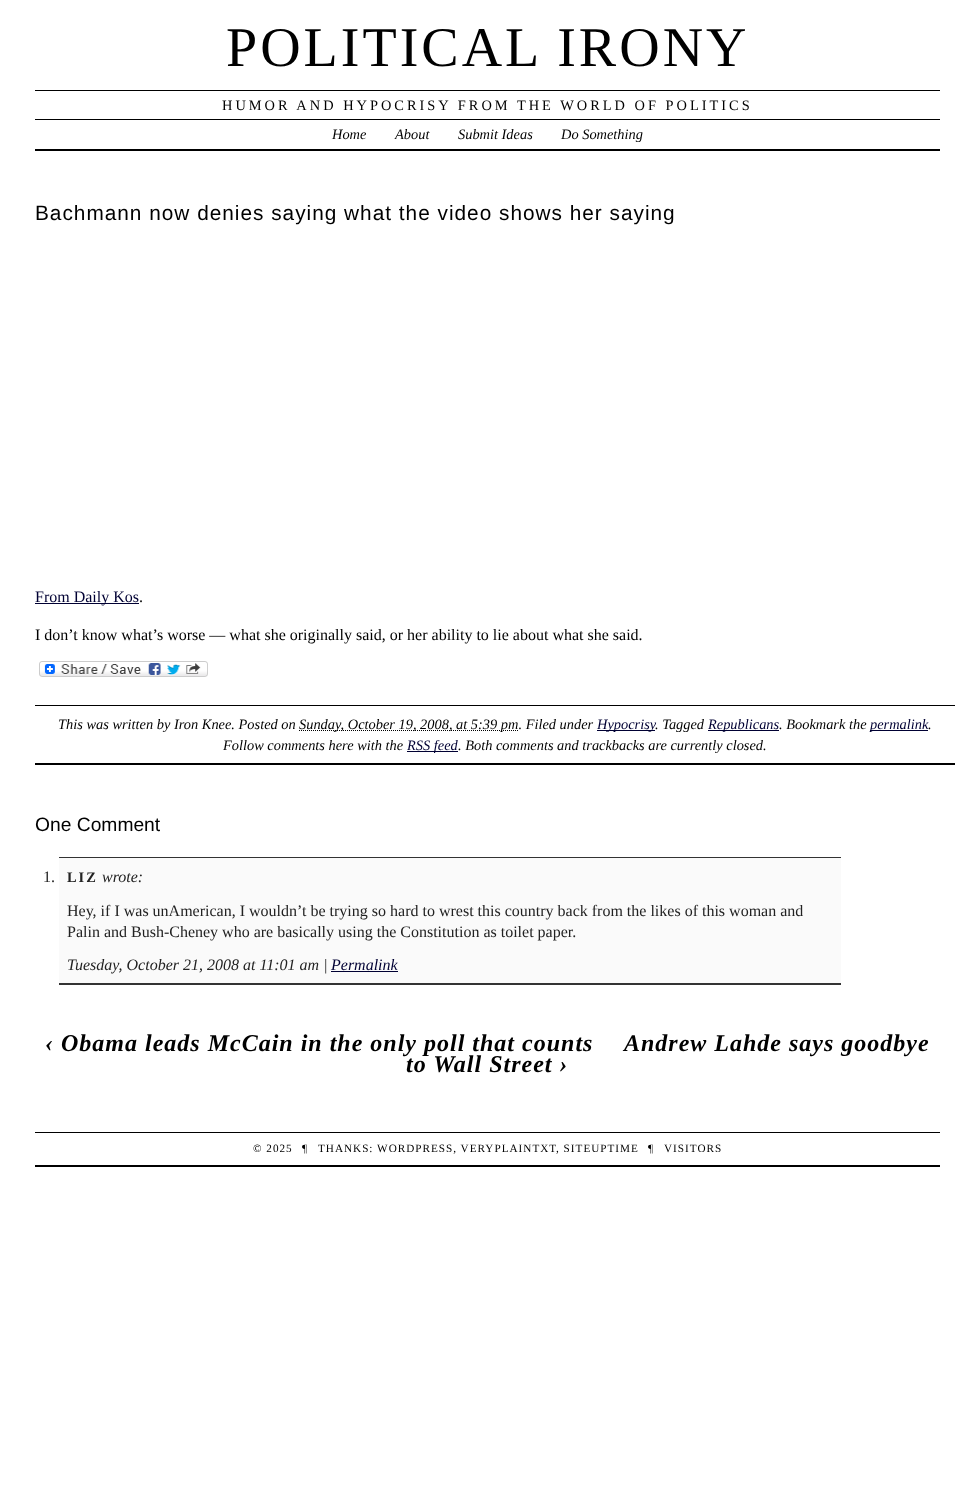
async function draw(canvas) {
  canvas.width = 975
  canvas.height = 1487
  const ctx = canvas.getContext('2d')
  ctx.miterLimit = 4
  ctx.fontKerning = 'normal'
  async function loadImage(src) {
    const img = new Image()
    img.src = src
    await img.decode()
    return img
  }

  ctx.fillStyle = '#fff'
  ctx.fillRect(0, 0, 975, 1487)
  ctx.letterSpacing = '3px'
  ctx.font = '56px Liberation Serif'
  ctx.fillStyle = '#000'
  ctx.fillText('POLITICAL IRONY', 226, 66)
  ctx.fillRect(35, 90, 905, 1)
  ctx.font = '14.4px Liberation Serif'
  ctx.fillText('HUMOR AND HYPOCRISY FROM THE WORLD OF POLITICS', 222, 110)
  ctx.fillRect(35, 119, 905, 1)
  ctx.fillRect(35, 149, 905, 2)
  ctx.letterSpacing = '0px'
  ctx.font = 'italic 14.4px Liberation Serif'
  ctx.fillText('Home', 332, 139)
  ctx.fillText('About', 395, 139)
  ctx.fillText('Submit Ideas', 458, 139)
  ctx.fillText('Do Something', 561, 139)
  ctx.letterSpacing = '1px'
  ctx.font = '20.8px Liberation Sans'
  ctx.fillText('Bachmann now denies saying what the video shows her saying', 35, 220)
  ctx.fillStyle = '#003'
  ctx.fillRect(35, 603, 104, 1)
  ctx.letterSpacing = '0px'
  ctx.font = '16px Liberation Serif'
  ctx.fillText('From Daily Kos', 35, 602)
  ctx.fillStyle = '#000'
  ctx.fillText('.', 139, 602)
  ctx.fillText('I don’t know what’s worse — what she originally said, or her ability to lie about what she said.', 35, 640)
  ctx.drawImage(await loadImage('image0.png'), 39, 661, 169, 16)
  ctx.fillRect(35, 705, 920, 1)
  ctx.fillRect(35, 763, 920, 2)
  ctx.font = 'italic 14.4px Liberation Serif'
  ctx.fillText('This was written by Iron Knee. Posted on', 58, 729)
  ctx.beginPath()
  ctx.moveTo(299, 730.5)
  ctx.lineTo(518.5, 730.5)
  ctx.strokeStyle = '#000'
  ctx.setLineDash([1, 1])
  ctx.stroke()
  ctx.fillText('Sunday, October 19, 2008, at 5:39 pm. Filed under', 299, 729)
  ctx.fillStyle = '#003'
  ctx.fillRect(597, 730, 58, 1)
  ctx.fillText('Hypocrisy', 597, 729)
  ctx.fillStyle = '#000'
  ctx.fillText('. Tagged', 655, 729)
  ctx.fillStyle = '#003'
  ctx.fillRect(708, 730, 71, 1)
  ctx.fillText('Republicans', 708, 729)
  ctx.fillStyle = '#000'
  ctx.fillText('. Bookmark the', 779, 729)
  ctx.fillStyle = '#003'
  ctx.fillRect(870, 730, 58, 1)
  ctx.fillText('permalink', 870, 729)
  ctx.fillStyle = '#000'
  ctx.fillText('.', 928, 729)
  ctx.fillText('Follow comments here with the', 223, 750)
  ctx.fillStyle = '#003'
  ctx.fillRect(407, 751, 51, 1)
  ctx.fillText('RSS feed', 407, 750)
  ctx.fillStyle = '#000'
  ctx.fillText('. Both comments and trackbacks are currently closed.', 458, 750)
  ctx.font = '19.25px Liberation Sans'
  ctx.fillText('One Comment', 35, 831)
  ctx.fillStyle = '#fafafa'
  ctx.fillRect(59, 858, 782, 125)
  ctx.fillStyle = '#333'
  ctx.fillRect(59, 857, 782, 1)
  ctx.fillRect(59, 983, 782, 2)
  ctx.font = '16px Liberation Serif'
  ctx.fillStyle = '#222'
  ctx.fillText('1.', 43, 882)
  ctx.letterSpacing = '2px'
  ctx.font = 'bold 14.4px Liberation Serif'
  ctx.fillText('LIZ', 67, 882)
  ctx.letterSpacing = '0px'
  ctx.font = 'italic 16px Liberation Serif'
  ctx.fillText('wrote:', 102, 882)
  ctx.font = '16px Liberation Serif'
  ctx.fillText('Hey, if I was unAmerican, I wouldn’t be trying so hard to wrest this country back from the likes of this woman and', 67, 916)
  ctx.fillText('Palin and Bush-Cheney who are basically using the Constitution as toilet paper.', 67, 937)
  ctx.font = 'italic 16px Liberation Serif'
  ctx.fillText('Tuesday, October 21, 2008 at 11:01 am |', 67, 970)
  ctx.fillStyle = '#003'
  ctx.fillText('Permalink', 331, 970)
  ctx.fillRect(331, 971, 67, 1)
  ctx.letterSpacing = '1px'
  ctx.font = 'italic bold 24px Liberation Serif'
  ctx.fillStyle = '#000'
  ctx.fillText('‹ Obama leads McCain in the only poll that counts', 45, 1051)
  ctx.fillText('Andrew Lahde says goodbye', 624, 1051)
  ctx.fillText('to Wall Street ›', 406, 1072)
  ctx.fillRect(35, 1132, 905, 1)
  ctx.fillRect(35, 1165, 905, 2)
  ctx.font = '11.2px Liberation Serif'
  ctx.fillText('© 2025', 253, 1152)
  ctx.fillText('¶', 302, 1152)
  ctx.fillText('THANKS: WORDPRESS, VERYPLAINTXT', 318, 1152)
  ctx.fillText(', SITEUPTIME', 556, 1152)
  ctx.fillText('¶', 648, 1152)
  ctx.fillText('VISITORS', 664, 1152)
}

draw(document.querySelector('canvas'))
